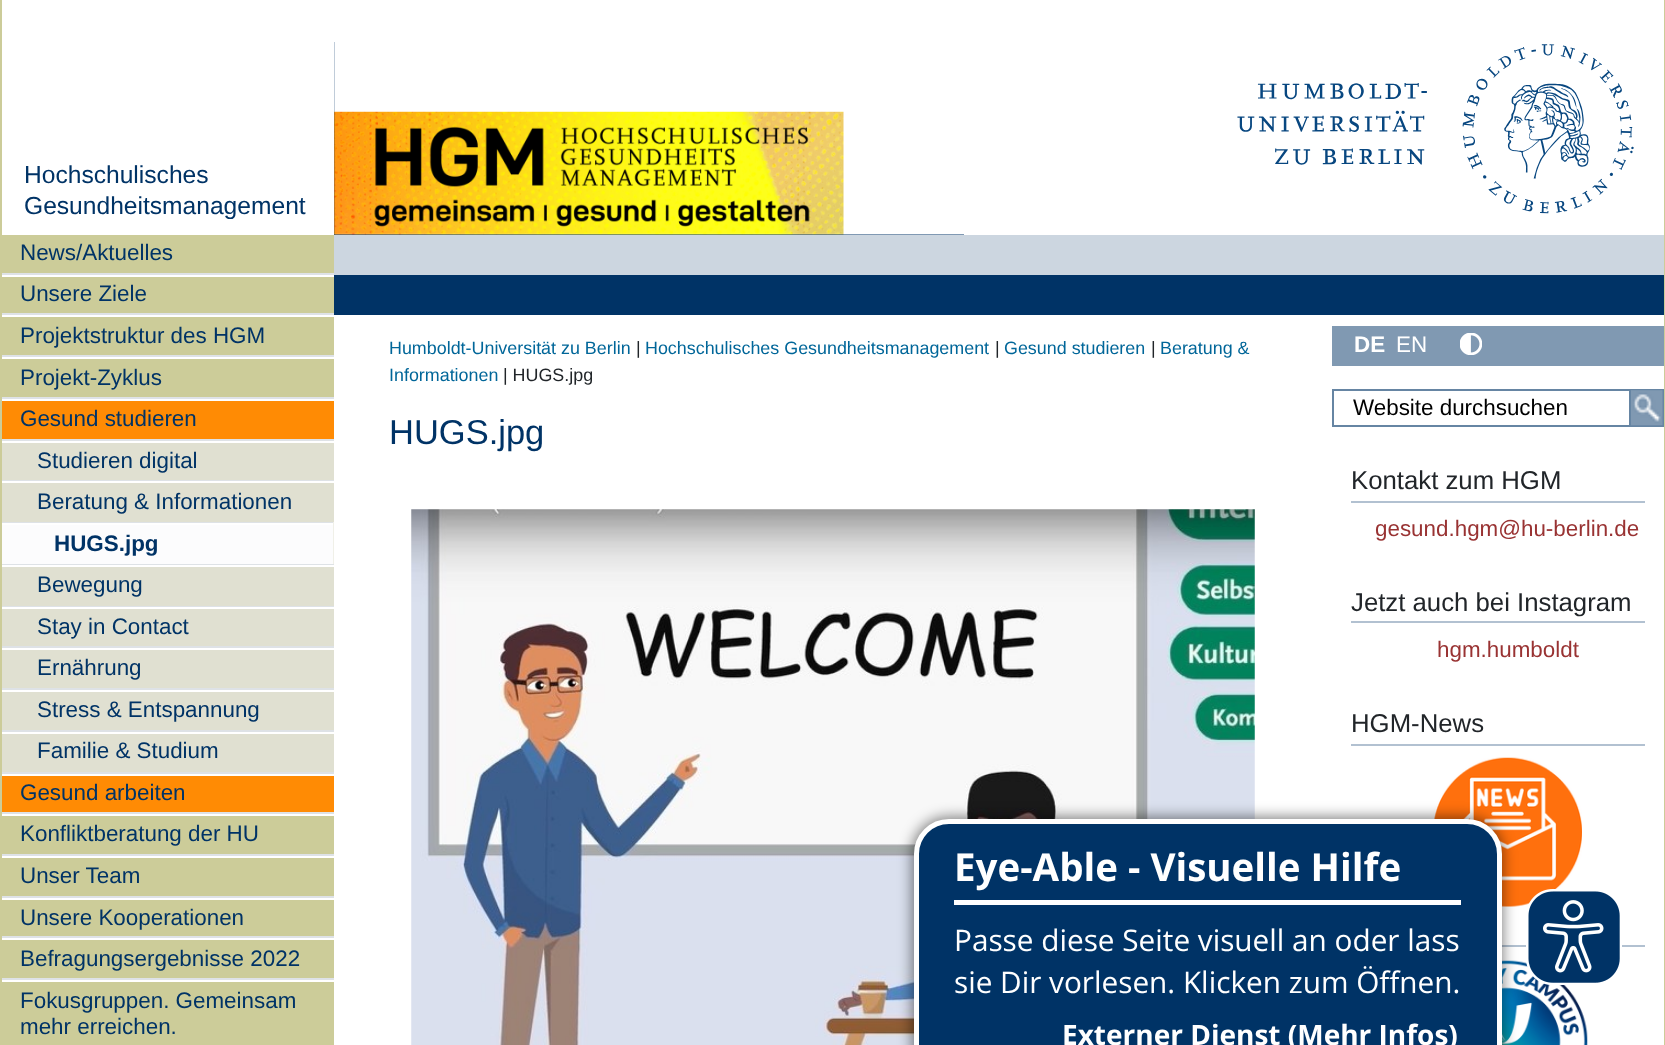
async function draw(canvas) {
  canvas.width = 1665
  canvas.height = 1045
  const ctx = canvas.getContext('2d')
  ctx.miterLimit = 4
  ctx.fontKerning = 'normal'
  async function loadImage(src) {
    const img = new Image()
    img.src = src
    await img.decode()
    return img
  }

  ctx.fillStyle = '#fff'
  ctx.fillRect(0, 0, 1665, 1045)
  ctx.fillStyle = '#036'
  ctx.fillRect(334, 42, 630, 193)
  ctx.drawImage(await loadImage('image0.png'), 334, 42, 630, 193)
  ctx.drawImage(await loadImage('image1.png'), 1237, 44, 397, 170)
  ctx.fillStyle = '#cc9'
  ctx.fillRect(1664, 0, 1, 1045)
  ctx.fillRect(0, 0, 2, 1045)
  ctx.font = '24.6px Liberation Sans'
  ctx.fillStyle = '#036'
  ctx.fillText('Hochschulisches', 24, 183)
  ctx.fillText('Gesundheitsmanagement', 24, 214)
  ctx.fillStyle = '#cc9'
  ctx.fillRect(2, 235, 332, 38)
  ctx.font = '22.4px Liberation Sans'
  ctx.fillStyle = '#036'
  ctx.fillText('News/Aktuelles', 20, 260)
  ctx.fillStyle = '#cc9'
  ctx.fillRect(2, 277, 332, 36)
  ctx.fillStyle = '#dee2e6'
  ctx.fillRect(2, 273, 332, 2)
  ctx.fillStyle = '#036'
  ctx.fillText('Unsere Ziele', 20, 301)
  ctx.fillStyle = '#cc9'
  ctx.fillRect(2, 317, 332, 38)
  ctx.fillStyle = '#dee2e6'
  ctx.fillRect(2, 313, 332, 2)
  ctx.fillStyle = '#036'
  ctx.fillText('Projektstruktur des HGM', 20, 343)
  ctx.fillStyle = '#cc9'
  ctx.fillRect(2, 359, 332, 38)
  ctx.fillStyle = '#dee2e6'
  ctx.fillRect(2, 355, 332, 2)
  ctx.fillStyle = '#036'
  ctx.fillText('Projekt-Zyklus', 20, 385)
  ctx.fillStyle = '#ff8b04'
  ctx.fillRect(2, 401, 332, 38)
  ctx.fillStyle = '#dee2e6'
  ctx.fillRect(2, 397, 332, 2)
  ctx.fillStyle = '#036'
  ctx.fillText('Gesund studieren', 20, 426)
  ctx.fillStyle = '#e0e0d1'
  ctx.fillRect(2, 443, 332, 37)
  ctx.fillStyle = '#dee2e6'
  ctx.fillRect(2, 439, 332, 2)
  ctx.fillStyle = '#036'
  ctx.fillText('Studieren digital', 37, 468)
  ctx.fillStyle = '#e0e0d1'
  ctx.fillRect(2, 483, 332, 39)
  ctx.fillStyle = '#dee2e6'
  ctx.fillRect(2, 480, 332, 1)
  ctx.fillStyle = '#036'
  ctx.fillText('Beratung & Informationen', 37, 509)
  ctx.fillStyle = '#dee2e6'
  ctx.fillRect(2, 522, 332, 1)
  ctx.fillStyle = '#f0f0e8'
  ctx.fillRect(333, 522, 1, 42)
  ctx.fillStyle = '#fcfcfd'
  ctx.fillRect(2, 525, 331, 39)
  ctx.font = 'bold 22.4px Liberation Sans'
  ctx.fillStyle = '#036'
  ctx.fillText('HUGS.jpg', 54, 551)
  ctx.fillStyle = '#e0e0d1'
  ctx.fillRect(2, 567, 332, 39)
  ctx.fillStyle = '#dee2e6'
  ctx.fillRect(2, 564, 332, 1)
  ctx.font = '22.4px Liberation Sans'
  ctx.fillStyle = '#036'
  ctx.fillText('Bewegung', 37, 592)
  ctx.fillStyle = '#e0e0d1'
  ctx.fillRect(2, 609, 332, 37)
  ctx.fillStyle = '#dee2e6'
  ctx.fillRect(2, 606, 332, 1)
  ctx.fillStyle = '#036'
  ctx.fillText('Stay in Contact', 37, 634)
  ctx.fillStyle = '#e0e0d1'
  ctx.fillRect(2, 650, 332, 38)
  ctx.fillStyle = '#dee2e6'
  ctx.fillRect(2, 646, 332, 2)
  ctx.fillStyle = '#036'
  ctx.fillText('Ernährung', 37, 675)
  ctx.fillStyle = '#e0e0d1'
  ctx.fillRect(2, 692, 332, 38)
  ctx.fillStyle = '#dee2e6'
  ctx.fillRect(2, 688, 332, 2)
  ctx.fillStyle = '#036'
  ctx.fillText('Stress & Entspannung', 37, 717)
  ctx.fillStyle = '#e0e0d1'
  ctx.fillRect(2, 734, 332, 38)
  ctx.fillStyle = '#dee2e6'
  ctx.fillRect(2, 730, 332, 2)
  ctx.fillStyle = '#036'
  ctx.fillText('Familie & Studium', 37, 758)
  ctx.fillStyle = '#ff8b04'
  ctx.fillRect(2, 776, 332, 36)
  ctx.fillStyle = '#dee2e6'
  ctx.fillRect(2, 772, 332, 2)
  ctx.fillStyle = '#036'
  ctx.fillText('Gesund arbeiten', 20, 800)
  ctx.fillStyle = '#cc9'
  ctx.fillRect(2, 816, 332, 38)
  ctx.fillStyle = '#dee2e6'
  ctx.fillRect(2, 812, 332, 2)
  ctx.fillStyle = '#036'
  ctx.fillText('Konfliktberatung der HU', 20, 841)
  ctx.fillStyle = '#cc9'
  ctx.fillRect(2, 858, 332, 38)
  ctx.fillStyle = '#dee2e6'
  ctx.fillRect(2, 854, 332, 2)
  ctx.fillStyle = '#036'
  ctx.fillText('Unser Team', 20, 883)
  ctx.fillStyle = '#cc9'
  ctx.fillRect(2, 900, 332, 36)
  ctx.fillStyle = '#dee2e6'
  ctx.fillRect(2, 896, 332, 2)
  ctx.fillStyle = '#036'
  ctx.fillText('Unsere Kooperationen', 20, 925)
  ctx.fillStyle = '#cc9'
  ctx.fillRect(2, 940, 332, 38)
  ctx.fillStyle = '#dee2e6'
  ctx.fillRect(2, 936, 332, 2)
  ctx.fillStyle = '#036'
  ctx.fillText('Befragungsergebnisse 2022', 20, 966)
  ctx.fillStyle = '#cc9'
  ctx.fillRect(2, 982, 332, 63)
  ctx.fillStyle = '#dee2e6'
  ctx.fillRect(2, 978, 332, 2)
  ctx.fillStyle = '#036'
  ctx.fillText('Fokusgruppen. Gemeinsam', 20, 1008)
  ctx.fillText('mehr erreichen.', 20, 1034)
  ctx.fillStyle = '#ccd6e0'
  ctx.fillRect(334, 235, 1330, 40)
  ctx.fillStyle = '#036'
  ctx.fillRect(334, 275, 1330, 40)
  ctx.font = '17.9px Liberation Sans'
  ctx.fillStyle = '#069'
  ctx.fillText('Humboldt-Universität zu Berlin', 389, 354)
  ctx.fillStyle = '#212529'
  ctx.fillText('|', 636, 354)
  ctx.fillStyle = '#069'
  ctx.fillText('Hochschulisches Gesundheitsmanagement', 645, 354)
  ctx.fillStyle = '#212529'
  ctx.fillText('|', 995, 354)
  ctx.fillStyle = '#069'
  ctx.fillText('Gesund studieren', 1004, 354)
  ctx.fillStyle = '#212529'
  ctx.fillText('|', 1151, 354)
  ctx.fillStyle = '#069'
  ctx.fillText('Beratung &', 1160, 354)
  ctx.fillText('Informationen', 389, 381)
  ctx.fillStyle = '#212529'
  ctx.fillText('| HUGS.jpg', 503, 381)
  ctx.font = '34.5px Liberation Sans'
  ctx.fillStyle = '#036'
  ctx.fillText('HUGS.jpg', 389, 444)
  ctx.drawImage(await loadImage('image2.png'), 411, 509, 844, 536)
  ctx.fillStyle = '#8099b2'
  ctx.fillRect(1332, 326, 332, 40)
  ctx.font = 'bold 22.4px Liberation Sans'
  ctx.fillStyle = '#fff'
  ctx.fillText('DE', 1354, 352)
  ctx.font = '22.4px Liberation Sans'
  ctx.fillText('EN', 1396, 352)
  ctx.drawImage(await loadImage('image3.png'), 1460, 333, 22, 22)
  ctx.strokeStyle = '#6685a3'
  ctx.lineWidth = 2
  ctx.strokeRect(1333, 390, 330, 36)
  ctx.fillStyle = '#000'
  ctx.fillText('Website durchsuchen', 1353, 415)
  ctx.strokeRect(1630, 390, 33, 36)
  ctx.drawImage(await loadImage('image4.png'), 1631, 390, 32, 36)
  ctx.fillStyle = '#b2c1d1'
  ctx.fillRect(1351, 501, 294, 2)
  ctx.font = '25.75px Liberation Sans'
  ctx.fillStyle = '#212529'
  ctx.fillText('Kontakt zum HGM', 1351, 489)
  ctx.font = '22.4px Liberation Sans'
  ctx.fillStyle = '#933'
  ctx.fillText('gesund.hgm@hu-berlin.de', 1375, 536)
  ctx.fillStyle = '#b2c1d1'
  ctx.fillRect(1351, 621, 294, 2)
  ctx.font = '25.75px Liberation Sans'
  ctx.fillStyle = '#212529'
  ctx.fillText('Jetzt auch bei Instagram', 1351, 611)
  ctx.font = '22.4px Liberation Sans'
  ctx.fillStyle = '#933'
  ctx.fillText('hgm.humboldt', 1437, 657)
  ctx.fillStyle = '#b2c1d1'
  ctx.fillRect(1351, 744, 294, 2)
  ctx.font = '25.75px Liberation Sans'
  ctx.fillStyle = '#212529'
  ctx.fillText('HGM-News', 1351, 732)
  ctx.drawImage(await loadImage('image5.png'), 1433, 757, 149, 150)
  ctx.fillStyle = '#b2c1d1'
  ctx.fillRect(1502, 945, 143, 2)
  ctx.drawImage(await loadImage('image6.png'), 1502, 960, 86, 85)
  ctx.fillStyle = '#00000080'
  ctx.filter = 'blur(7px)'
  ctx.beginPath()
  ctx.roundRect(912, 817, 591, 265, 37)
  ctx.fill()
  ctx.filter = 'none'
  ctx.fillStyle = '#036'
  ctx.beginPath()
  ctx.roundRect(916.5, 821.5, 583, 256, 32.5)
  ctx.fill()
  ctx.strokeStyle = '#fff'
  ctx.lineWidth = 5
  ctx.stroke()
  ctx.fillStyle = '#fff'
  ctx.fillRect(954, 900, 507, 5)
  ctx.font = 'bold 38.5px Open Sans'
  ctx.fillText('Eye-Able - Visuelle Hilfe', 954, 881)
  ctx.font = '29.75px Open Sans'
  ctx.fillText('Passe diese Seite visuell an oder lass', 954, 951)
  ctx.fillText('sie Dir vorlesen. Klicken zum Öffnen.', 954, 993)
  ctx.font = 'bold 28px Open Sans'
  ctx.fillText('Externer Dienst (Mehr Infos)', 1062, 1045)
  ctx.drawImage(await loadImage('image7.png'), 1526, 889, 96, 96)
}

draw(document.querySelector('canvas'))
